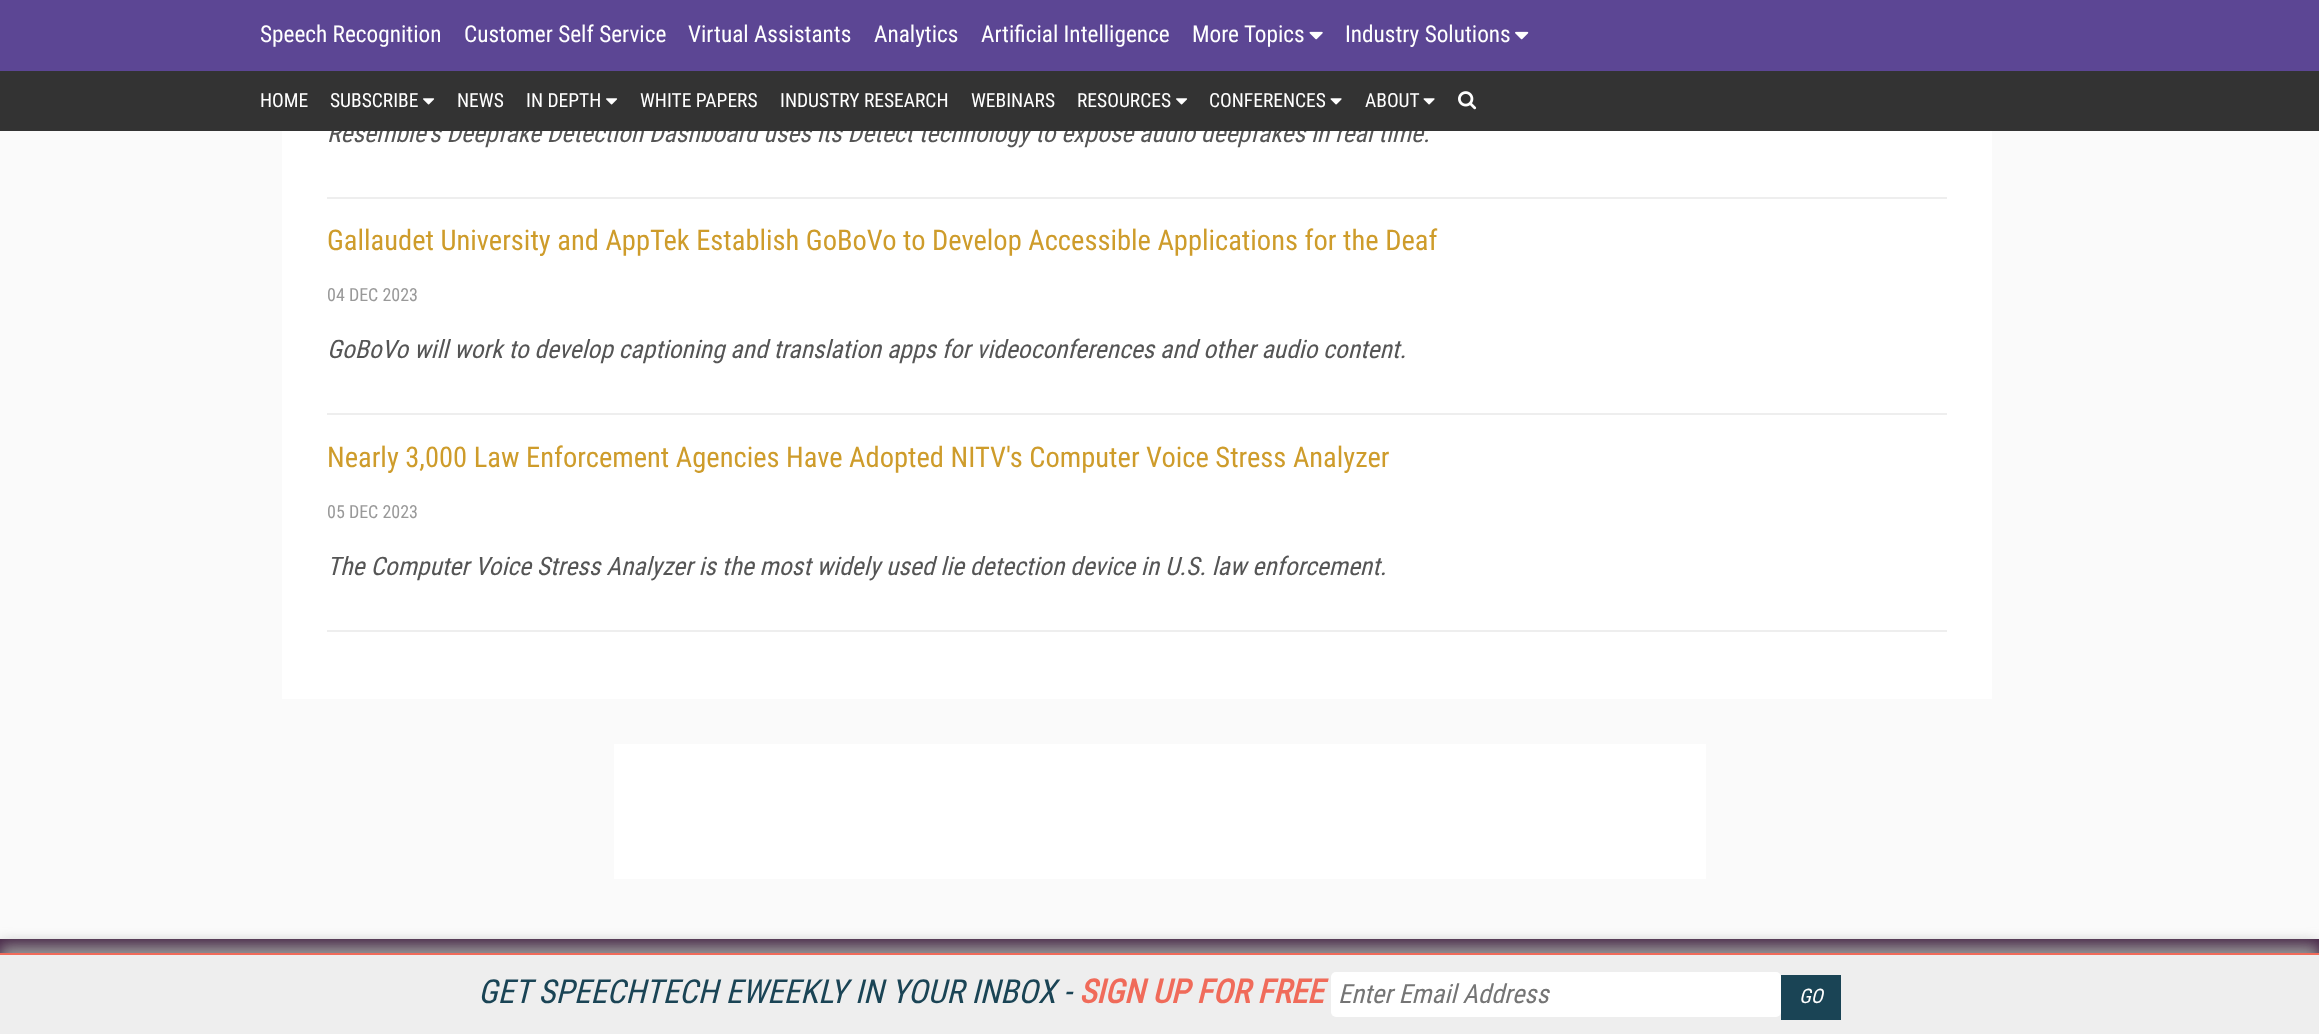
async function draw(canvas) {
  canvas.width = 2319
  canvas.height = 1034
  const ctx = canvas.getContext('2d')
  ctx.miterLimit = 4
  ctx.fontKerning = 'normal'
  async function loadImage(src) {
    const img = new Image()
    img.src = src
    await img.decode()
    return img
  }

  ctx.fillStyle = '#fafafa'
  ctx.fillRect(0, 0, 2319, 1034)
  ctx.fillStyle = '#5c4694'
  ctx.fillRect(0, 0, 2319, 71)
  ctx.font = '23.25px Roboto Condensed'
  ctx.fillStyle = '#fff'
  ctx.fillText('Speech Recognition', 260, 42)
  ctx.fillText('Customer Self Service', 464, 42)
  ctx.fillText('Virtual Assistants', 688, 42)
  ctx.fillText('Analytics', 874, 42)
  ctx.fillText('Artificial Intelligence', 981, 42)
  ctx.fillText('More Topics', 1192, 42)
  ctx.drawImage(await loadImage('image0.png'), 1309, 31, 14, 9)
  ctx.fillText('Industry Solutions', 1345, 42)
  ctx.drawImage(await loadImage('image1.png'), 1515, 31, 14, 9)
  ctx.fillRect(282, 131, 1710, 568)
  ctx.font = 'italic 25.5px Roboto Condensed'
  ctx.fillStyle = '#555'
  ctx.fillText('Resemble\'s Deepfake Detection Dashboard uses its Detect technology to expose audio deepfakes in real time.', 327, 142)
  ctx.fillStyle = '#333'
  ctx.fillRect(0, 71, 2319, 60)
  ctx.font = '19.5px Roboto Condensed'
  ctx.fillStyle = '#fff'
  ctx.fillText('HOME', 260, 107)
  ctx.fillText('SUBSCRIBE', 330, 107)
  ctx.drawImage(await loadImage('image2.png'), 423, 98, 12, 7)
  ctx.fillText('NEWS', 457, 107)
  ctx.fillText('IN DEPTH', 526, 107)
  ctx.drawImage(await loadImage('image2.png'), 606, 98, 12, 7)
  ctx.fillText('WHITE PAPERS', 640, 107)
  ctx.fillText('INDUSTRY RESEARCH', 780, 107)
  ctx.fillText('WEBINARS', 971, 107)
  ctx.fillText('RESOURCES', 1077, 107)
  ctx.drawImage(await loadImage('image2.png'), 1176, 98, 12, 7)
  ctx.fillText('CONFERENCES', 1209, 107)
  ctx.drawImage(await loadImage('image3.png'), 1330, 98, 12, 7)
  ctx.fillText('ABOUT', 1365, 107)
  ctx.drawImage(await loadImage('image3.png'), 1423, 98, 12, 7)
  ctx.drawImage(await loadImage('image4.png'), 1458, 91, 19, 19)
  ctx.fillStyle = '#eee'
  ctx.fillRect(327, 197, 1620, 2)
  ctx.font = '28.5px Roboto Condensed'
  ctx.fillStyle = '#ce9c2b'
  ctx.fillText('Gallaudet University and AppTek Establish GoBoVo to Develop Accessible Applications for the Deaf', 327, 250)
  ctx.font = '18px Roboto Condensed'
  ctx.fillStyle = '#999'
  ctx.fillText('04 DEC 2023', 327, 301)
  ctx.fillStyle = '#eee'
  ctx.fillRect(327, 413, 1620, 2)
  ctx.font = 'italic 25.5px Roboto Condensed'
  ctx.fillStyle = '#555'
  ctx.fillText('GoBoVo will work to develop captioning and translation apps for videoconferences and other audio content.', 327, 358)
  ctx.font = '28.5px Roboto Condensed'
  ctx.fillStyle = '#ce9c2b'
  ctx.fillText('Nearly 3,000 Law Enforcement Agencies Have Adopted NITV\'s Computer Voice Stress Analyzer', 327, 467)
  ctx.font = '18px Roboto Condensed'
  ctx.fillStyle = '#999'
  ctx.fillText('05 DEC 2023', 327, 518)
  ctx.fillStyle = '#eee'
  ctx.fillRect(327, 630, 1620, 2)
  ctx.font = 'italic 25.5px Roboto Condensed'
  ctx.fillStyle = '#555'
  ctx.fillText('The Computer Voice Stress Analyzer is the most widely used lie detection device in U.S. law enforcement.', 327, 575)
  ctx.fillStyle = '#fff'
  ctx.fillRect(614, 744, 1092, 135)
  ctx.fillStyle = '#424'
  ctx.fillRect(0, 939, 2319, 14)
  ctx.fillStyle = '#999'
  ctx.filter = 'blur(7.5px)'
  ctx.beginPath()
  ctx.rect(0, 945, 2319, 83)
  ctx.fill()
  ctx.filter = 'none'
  ctx.fillStyle = '#eee'
  ctx.fillRect(0, 955, 2319, 79)
  ctx.fillStyle = '#f06b5a'
  ctx.fillRect(0, 953, 2319, 2)
  ctx.font = 'italic 33px Roboto Condensed'
  ctx.fillStyle = '#1a4455'
  ctx.fillText('GET SPEECHTECH EWEEKLY IN YOUR INBOX -', 478, 1003)
  ctx.font = 'italic bold 33px Roboto Condensed'
  ctx.fillStyle = '#f06b5a'
  ctx.fillText('SIGN UP FOR FREE', 1079, 1003)
  ctx.fillStyle = '#fff'
  ctx.beginPath()
  ctx.roundRect(1331, 972, 450, 45, 5)
  ctx.fill()
  ctx.font = 'italic 26.5px Roboto Condensed'
  ctx.fillStyle = '#757575'
  ctx.fillText('Enter Email Address', 1338, 1003)
  ctx.fillStyle = '#1a4455'
  ctx.fillRect(1781, 975, 60, 45)
  ctx.font = 'italic 20px Roboto Condensed'
  ctx.fillStyle = '#fff'
  ctx.fillText('GO', 1799, 1003)
}

draw(document.querySelector('canvas'))
